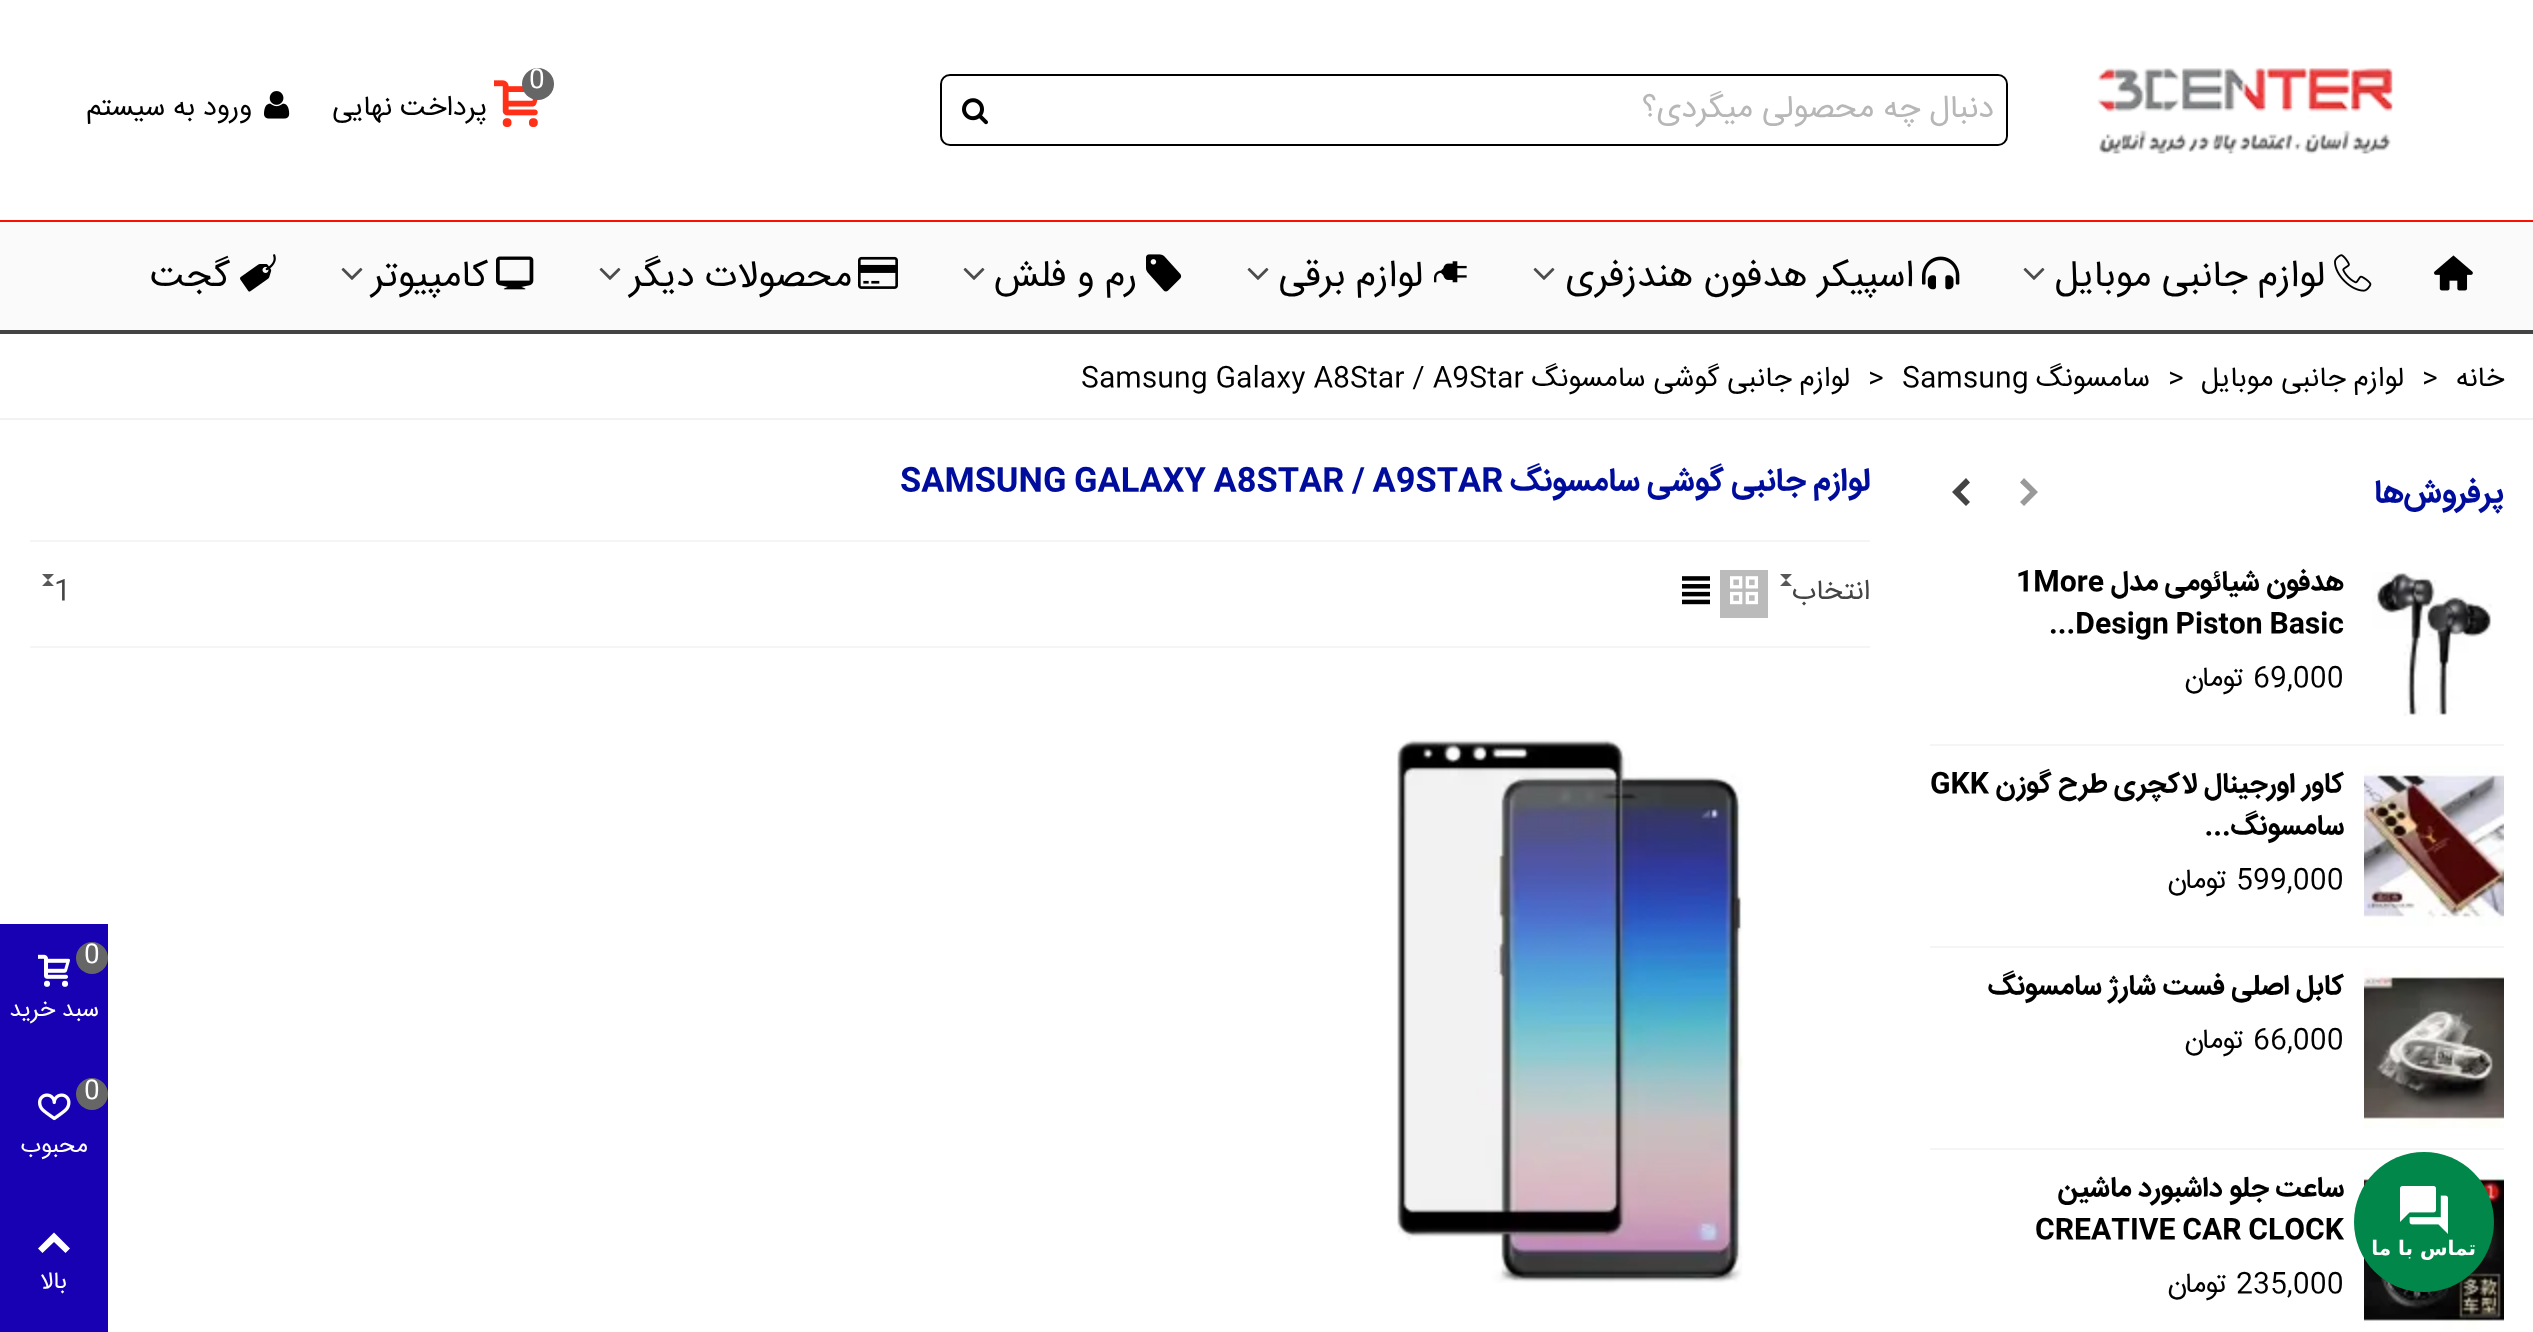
async function draw(canvas) {
  canvas.width = 2533
  canvas.height = 1332
  const ctx = canvas.getContext('2d')
  ctx.miterLimit = 4
  ctx.fontKerning = 'normal'
  async function loadImage(src) {
    const img = new Image()
    img.src = src
    await img.decode()
    return img
  }

  ctx.fillStyle = '#fff'
  ctx.fillRect(0, 0, 2533, 1332)
  ctx.fillStyle = '#fafafa'
  ctx.fillRect(0, 222, 2533, 108)
  ctx.fillStyle = '#fa1200'
  ctx.fillRect(0, 220, 2533, 2)
  ctx.drawImage(await loadImage('image0.png'), 2097, 68, 296, 86)
  ctx.beginPath()
  ctx.roundRect(941, 75, 1066, 70, 9)
  ctx.strokeStyle = '#000'
  ctx.lineWidth = 2
  ctx.stroke()
  ctx.fillStyle = '#fff'
  ctx.beginPath()
  ctx.roundRect(1008, 76, 998, 68, [0, 10, 10, 0])
  ctx.fill()
  ctx.direction = 'rtl'
  ctx.font = '32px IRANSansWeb'
  ctx.fillStyle = '#b7b7b7'
  ctx.fillText('دنبال چه محصولی میگردی؟', 1994, 117)
  ctx.drawImage(await loadImage('image1.png'), 962, 98, 26, 27)
  ctx.drawImage(await loadImage('image2.png'), 494, 80, 44, 47)
  ctx.fillStyle = '#666'
  ctx.beginPath()
  ctx.arc(538, 84, 16, 0, 2 * Math.PI)
  ctx.fill()
  ctx.direction = 'ltr'
  ctx.font = '26px IRANSansWeb'
  ctx.fillStyle = '#fff'
  ctx.fillText('0', 529, 87)
  ctx.direction = 'rtl'
  ctx.font = '28px IRANSansWeb'
  ctx.fillStyle = '#000'
  ctx.fillText('پرداخت نهایی', 487, 115)
  ctx.drawImage(await loadImage('image3.png'), 264, 91, 26, 28)
  ctx.fillText('ورود به سیستم', 252, 115)
  ctx.fillStyle = '#444'
  ctx.fillRect(0, 330, 2533, 4)
  ctx.drawImage(await loadImage('image4.png'), 2434, 255, 39, 36)
  ctx.drawImage(await loadImage('image5.png'), 2334, 254, 38, 38)
  ctx.font = '37.25px IRANSansWeb'
  ctx.fillStyle = '#000'
  ctx.fillText('لوازم جانبی موبایل', 2325, 286)
  ctx.drawImage(await loadImage('image6.png'), 2023, 267, 22, 13)
  ctx.drawImage(await loadImage('image7.png'), 1922, 256, 38, 34)
  ctx.fillText('اسپیکر هدفون هندزفری', 1914, 286)
  ctx.drawImage(await loadImage('image6.png'), 1533, 267, 22, 13)
  ctx.drawImage(await loadImage('image8.png'), 1434, 261, 33, 22)
  ctx.fillText('لوازم برقی', 1423, 286)
  ctx.drawImage(await loadImage('image6.png'), 1247, 267, 22, 13)
  ctx.drawImage(await loadImage('image9.png'), 1146, 254, 36, 38)
  ctx.fillText('رم و فلش', 1137, 286)
  ctx.drawImage(await loadImage('image6.png'), 963, 267, 22, 13)
  ctx.drawImage(await loadImage('image10.png'), 858, 256, 40, 33)
  ctx.fillText('محصولات دیگر', 852, 286)
  ctx.drawImage(await loadImage('image6.png'), 599, 267, 22, 13)
  ctx.drawImage(await loadImage('image11.png'), 496, 256, 38, 34)
  ctx.fillText('کامپیوتر', 488, 286)
  ctx.drawImage(await loadImage('image6.png'), 341, 267, 22, 13)
  ctx.drawImage(await loadImage('image12.png'), 240, 254, 36, 38)
  ctx.fillText('گجت', 230, 286)
  ctx.fillStyle = '#f2f2f2'
  ctx.fillRect(0, 418, 2533, 2)
  ctx.font = '28px IRANSansWeb'
  ctx.fillStyle = '#000'
  ctx.fillText('خانه', 2504, 386)
  ctx.direction = 'ltr'
  ctx.fillText('>', 2422, 386)
  ctx.direction = 'rtl'
  ctx.fillText('لوازم جانبی موبایل', 2404, 386)
  ctx.direction = 'ltr'
  ctx.fillText('>', 2168, 386)
  ctx.direction = 'rtl'
  ctx.fillText('سامسونگ', 2150, 386)
  ctx.direction = 'ltr'
  ctx.fillText('Samsung', 1902, 386)
  ctx.fillText('>', 1868, 386)
  ctx.direction = 'rtl'
  ctx.fillText('لوازم جانبی گوشی سامسونگ', 1850, 386)
  ctx.direction = 'ltr'
  ctx.fillText('Samsung Galaxy A8Star / A9Star', 1081, 386)
  ctx.direction = 'rtl'
  ctx.font = 'bold 32px IRANSansWeb'
  ctx.fillStyle = '#000d9c'
  ctx.fillText('پرفروش‌ها', 2504, 502)
  ctx.fillStyle = '#999'
  ctx.beginPath()
  ctx.moveTo(2020, 502)
  ctx.lineTo(2030, 492)
  ctx.lineTo(2020, 482.5)
  ctx.lineTo(2024, 478)
  ctx.lineTo(2038, 492)
  ctx.lineTo(2024, 506)
  ctx.closePath()
  ctx.fill()
  ctx.fillStyle = '#444'
  ctx.beginPath()
  ctx.moveTo(1952, 492)
  ctx.lineTo(1966, 478)
  ctx.lineTo(1970, 482.5)
  ctx.lineTo(1960.5, 492)
  ctx.lineTo(1970, 502)
  ctx.lineTo(1966, 506)
  ctx.closePath()
  ctx.fill()
  ctx.fillStyle = '#f5f5f5'
  ctx.fillRect(1930, 744, 574, 2)
  ctx.drawImage(await loadImage('image13.png'), 2372, 572, 120, 144)
  ctx.font = 'bold 28px IRANSansWeb'
  ctx.fillStyle = '#000'
  ctx.fillText('هدفون شیائومی مدل', 2344, 590)
  ctx.direction = 'ltr'
  ctx.fillText('1More', 2016, 590)
  ctx.fillText('...Design Piston Basic', 2049, 632)
  ctx.font = '28px IRANSansWeb'
  ctx.fillText('69,000', 2253, 686)
  ctx.direction = 'rtl'
  ctx.fillText('تومان', 2245, 686)
  ctx.fillStyle = '#f5f5f5'
  ctx.fillRect(1930, 946, 574, 2)
  ctx.drawImage(await loadImage('image14.png'), 2364, 766, 140, 160)
  ctx.font = 'bold 28px IRANSansWeb'
  ctx.fillStyle = '#000'
  ctx.fillText('کاور اورجینال لاکچری طرح گوزن', 2344, 792)
  ctx.direction = 'ltr'
  ctx.fillText('GKK', 1930, 792)
  ctx.direction = 'rtl'
  ctx.fillText('سامسونگ...', 2344, 834)
  ctx.direction = 'ltr'
  ctx.font = '28px IRANSansWeb'
  ctx.fillText('599,000', 2236, 888)
  ctx.direction = 'rtl'
  ctx.fillText('تومان', 2228, 888)
  ctx.fillStyle = '#f5f5f5'
  ctx.fillRect(1930, 1148, 574, 2)
  ctx.drawImage(await loadImage('image15.png'), 2364, 968, 140, 160)
  ctx.font = 'bold 28px IRANSansWeb'
  ctx.fillStyle = '#000'
  ctx.fillText('کابل اصلی فست شارژ سامسونگ', 2344, 994)
  ctx.direction = 'ltr'
  ctx.font = '28px IRANSansWeb'
  ctx.fillText('66,000', 2253, 1048)
  ctx.direction = 'rtl'
  ctx.fillText('تومان', 2245, 1048)
  ctx.drawImage(await loadImage('image16.png'), 2364, 1170, 140, 160)
  ctx.font = 'bold 28px IRANSansWeb'
  ctx.fillText('ساعت جلو داشبورد ماشین', 2344, 1196)
  ctx.direction = 'ltr'
  ctx.fillText('CREATIVE CAR CLOCK', 2035, 1238)
  ctx.font = '28px IRANSansWeb'
  ctx.fillText('235,000', 2236, 1292)
  ctx.direction = 'rtl'
  ctx.fillText('تومان', 2228, 1292)
  ctx.font = 'bold 32px IRANSansWeb'
  ctx.fillStyle = '#000d9c'
  ctx.fillText('لوازم جانبی گوشی سامسونگ', 1870, 490)
  ctx.direction = 'ltr'
  ctx.fillText('SAMSUNG GALAXY A8STAR / A9STAR', 900, 490)
  ctx.fillStyle = '#f5f5f5'
  ctx.fillRect(30, 540, 1840, 2)
  ctx.fillRect(30, 646, 1840, 2)
  ctx.direction = 'rtl'
  ctx.font = '28px IRANSansWeb'
  ctx.fillStyle = '#444'
  ctx.fillText('انتخاب', 1870, 599)
  ctx.fillStyle = '#585858'
  ctx.beginPath()
  ctx.moveTo(1780, 574)
  ctx.lineTo(1792, 574)
  ctx.lineTo(1786, 580)
  ctx.closePath()
  ctx.moveTo(1792, 586)
  ctx.lineTo(1780, 586)
  ctx.lineTo(1786, 580)
  ctx.closePath()
  ctx.fill()
  ctx.fillStyle = '#bbb'
  ctx.fillRect(1720, 570, 48, 48)
  ctx.drawImage(await loadImage('image17.png'), 1730, 576, 28, 29)
  ctx.drawImage(await loadImage('image18.png'), 1682, 576, 28, 29)
  ctx.direction = 'ltr'
  ctx.fillStyle = '#444'
  ctx.fillText('1', 54, 599)
  ctx.fillStyle = '#585858'
  ctx.beginPath()
  ctx.moveTo(42, 574)
  ctx.lineTo(54, 574)
  ctx.lineTo(48, 580)
  ctx.closePath()
  ctx.moveTo(54, 586)
  ctx.lineTo(42, 586)
  ctx.lineTo(48, 580)
  ctx.closePath()
  ctx.fill()
  ctx.drawImage(await loadImage('image19.png'), 1397, 739, 346, 544)
  ctx.fillStyle = '#1800b3'
  ctx.fillRect(0, 924, 108, 408)
  ctx.fillStyle = '#666'
  ctx.beginPath()
  ctx.arc(92, 958, 16, 0, 2 * Math.PI)
  ctx.fill()
  ctx.font = '26px IRANSansWeb'
  ctx.fillStyle = '#fff'
  ctx.fillText('0', 84, 962)
  ctx.drawImage(await loadImage('image20.png'), 38, 954, 32, 33)
  ctx.direction = 'rtl'
  ctx.font = '23.5px IRANSansWeb'
  ctx.fillText('سبد خرید', 99, 1016)
  ctx.fillStyle = '#666'
  ctx.beginPath()
  ctx.arc(92, 1094, 16, 0, 2 * Math.PI)
  ctx.fill()
  ctx.direction = 'ltr'
  ctx.font = '26px IRANSansWeb'
  ctx.fillStyle = '#fff'
  ctx.fillText('0', 84, 1098)
  ctx.drawImage(await loadImage('image21.png'), 38, 1093, 33, 28)
  ctx.direction = 'rtl'
  ctx.font = '23.5px IRANSansWeb'
  ctx.fillText('محبوب', 88, 1152)
  ctx.beginPath()
  ctx.moveTo(38, 1248.5)
  ctx.lineTo(54, 1232.5)
  ctx.lineTo(70, 1248.5)
  ctx.lineTo(65.5, 1253)
  ctx.lineTo(54, 1242)
  ctx.lineTo(42.5, 1253)
  ctx.closePath()
  ctx.fill()
  ctx.fillText('بالا', 67, 1288)
  ctx.fillStyle = '#008749'
  ctx.beginPath()
  ctx.arc(2424, 1222, 70, 0, 2 * Math.PI)
  ctx.fill()
  ctx.drawImage(await loadImage('image22.png'), 2400, 1186, 48, 48)
  ctx.font = 'bold 20px DejaVu Sans'
  ctx.fillStyle = '#fff'
  ctx.fillText('تماس با ما', 2476, 1255)
}

draw(document.querySelector('canvas'))
